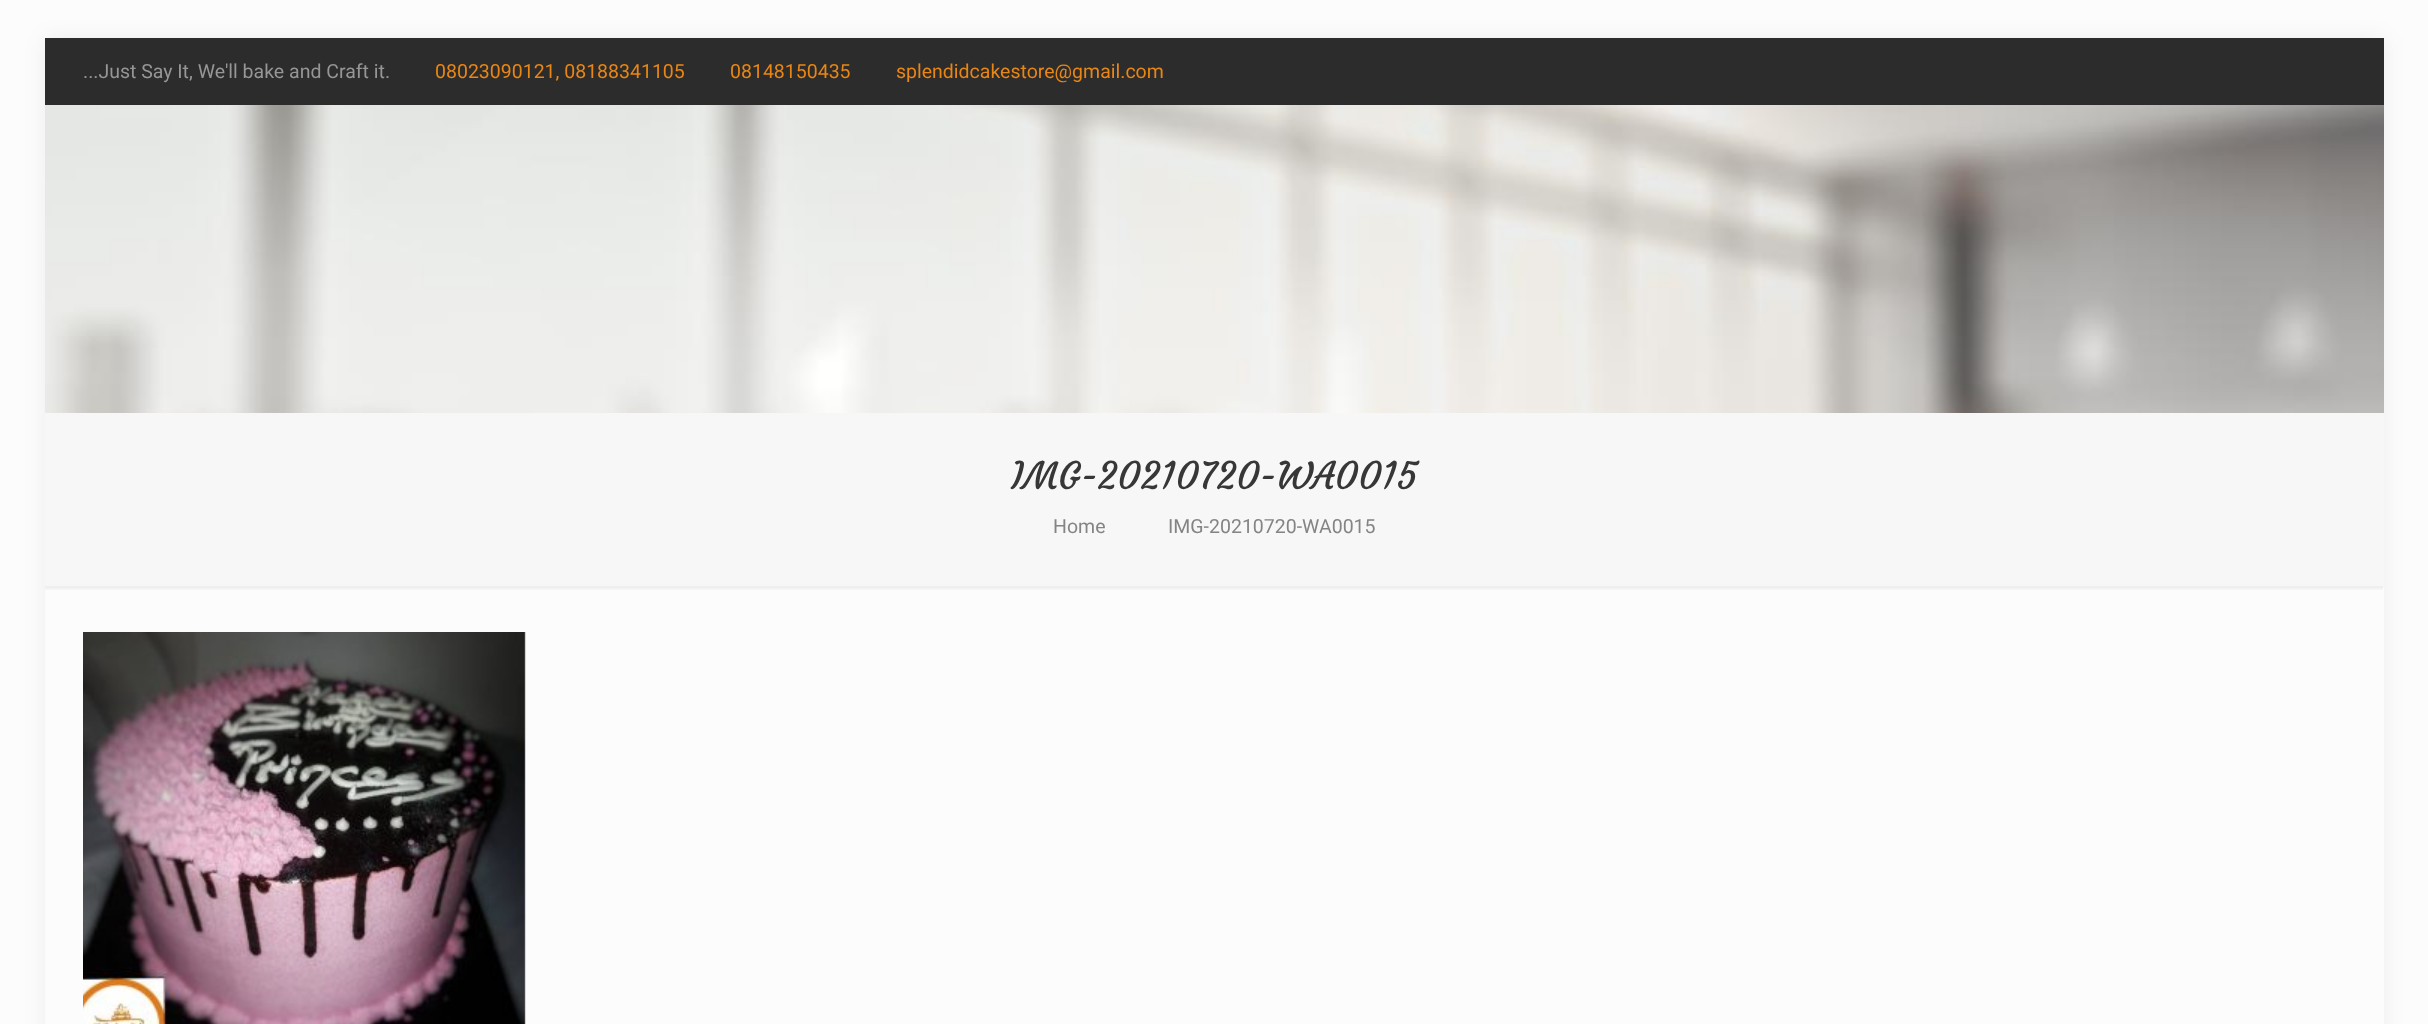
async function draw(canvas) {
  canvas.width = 2428
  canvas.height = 1024
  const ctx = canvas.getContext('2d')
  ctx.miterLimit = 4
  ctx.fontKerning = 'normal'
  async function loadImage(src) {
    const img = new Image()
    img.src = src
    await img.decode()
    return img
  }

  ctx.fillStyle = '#fcfcfc'
  ctx.fillRect(0, 0, 2428, 1024)
  ctx.fillStyle = '#0000000f'
  ctx.filter = 'blur(11px)'
  ctx.beginPath()
  ctx.rect(45, 38, 2339, 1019)
  ctx.fill()
  ctx.filter = 'none'
  ctx.fillStyle = '#fcfcfc'
  ctx.fillRect(45, 587, 2339, 437)
  ctx.drawImage(await loadImage('image0.png'), 45, 105, 2339, 308)
  ctx.fillStyle = '#2c2c2c'
  ctx.fillRect(45, 38, 2339, 67)
  ctx.font = '19.5px Roboto'
  ctx.fillStyle = '#969696'
  ctx.fillText('...Just Say It, We\'ll bake and Craft it.', 83, 78)
  ctx.fillStyle = '#ea8613'
  ctx.fillText('08023090121, 08188341105', 435, 78)
  ctx.fillText('08148150435', 730, 78)
  ctx.fillText('splendidcakestore@gmail.com', 896, 78)
  ctx.fillStyle = '#f7f7f7'
  ctx.fillRect(45, 413, 2339, 174)
  ctx.font = '37.5px Courgette'
  ctx.fillStyle = '#373737'
  ctx.fillText('IMG-20210720-WA0015', 1011, 489)
  ctx.font = '19.5px Roboto'
  ctx.fillStyle = '#848484'
  ctx.fillText('Home', 1053, 533)
  ctx.fillText('IMG-20210720-WA0015', 1168, 533)
  ctx.drawImage(await loadImage('image1.png'), 45, 586, 2338, 4)
  ctx.drawImage(await loadImage('image2.png'), 83, 632, 443, 392)
}

draw(document.querySelector('canvas'))
